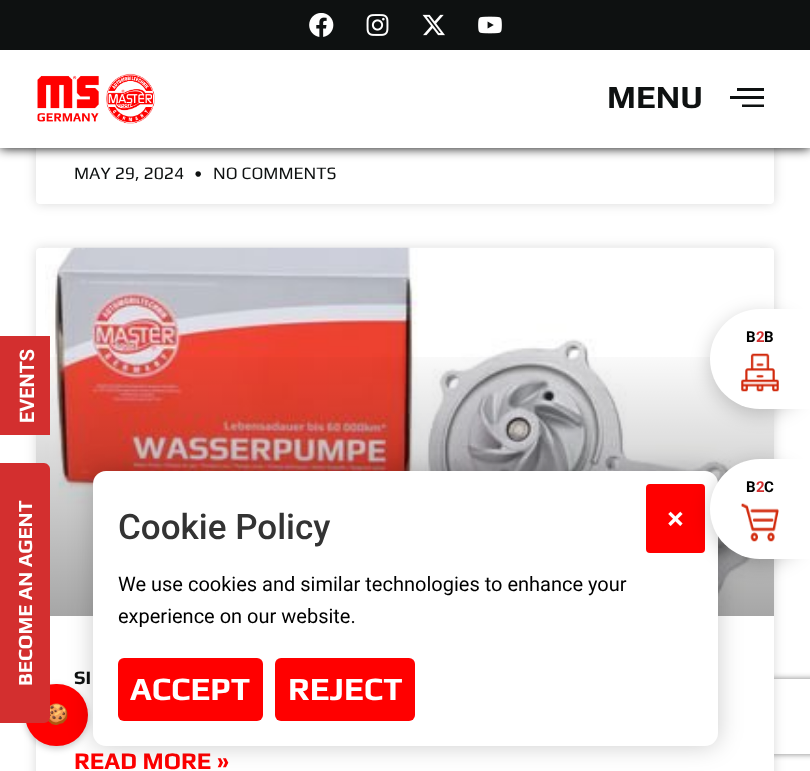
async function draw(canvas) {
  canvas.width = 810
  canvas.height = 771
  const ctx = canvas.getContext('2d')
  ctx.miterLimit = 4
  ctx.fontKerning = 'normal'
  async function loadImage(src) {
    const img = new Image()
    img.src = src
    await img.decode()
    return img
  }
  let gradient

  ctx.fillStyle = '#fff'
  ctx.fillRect(0, 0, 810, 771)
  ctx.fillStyle = '#00000026'
  ctx.filter = 'blur(6px)'
  ctx.beginPath()
  ctx.roundRect(36, -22, 738, 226, 4)
  ctx.fill()
  ctx.filter = 'none'
  ctx.fillStyle = '#fff'
  ctx.beginPath()
  ctx.roundRect(36, -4, 738, 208, 4)
  ctx.fill()
  ctx.fillStyle = '#000'
  ctx.filter = 'blur(6px)'
  ctx.beginPath()
  ctx.rect(0, 50, 810, 98)
  ctx.fill()
  ctx.filter = 'none'
  ctx.fillStyle = '#0e1111'
  ctx.fillRect(0, 0, 810, 50)
  ctx.drawImage(await loadImage('image0.png'), 309, 13, 25, 24)
  ctx.drawImage(await loadImage('image1.png'), 366, 14, 23, 22)
  ctx.drawImage(await loadImage('image2.png'), 422, 14, 23, 22)
  ctx.drawImage(await loadImage('image3.png'), 478, 16, 24, 18)
  ctx.fillStyle = '#fff'
  ctx.fillRect(0, 50, 810, 98)
  ctx.drawImage(await loadImage('image4.png'), 37, 73, 118, 51)
  ctx.font = 'bold 32.5px Play'
  ctx.fillStyle = '#0e1111'
  ctx.fillText('MENU', 607, 108)
  ctx.beginPath()
  ctx.moveTo(730, 99)
  ctx.lineTo(764, 99)
  ctx.lineTo(764, 96)
  ctx.lineTo(730, 96)
  ctx.closePath()
  ctx.moveTo(742, 107)
  ctx.lineTo(764, 107)
  ctx.lineTo(764, 104.5)
  ctx.lineTo(742, 104.5)
  ctx.closePath()
  ctx.moveTo(737, 88)
  ctx.lineTo(737, 91)
  ctx.lineTo(764, 91)
  ctx.lineTo(764, 88)
  ctx.closePath()
  ctx.fill()
  ctx.fillStyle = '#00000026'
  ctx.filter = 'blur(6px)'
  ctx.beginPath()
  ctx.roundRect(36, 248, 738, 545, 4)
  ctx.fill()
  ctx.filter = 'none'
  ctx.save()
  ctx.beginPath()
  ctx.moveTo(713, 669)
  ctx.lineTo(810, 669)
  ctx.lineTo(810, 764)
  ctx.lineTo(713, 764)
  ctx.closePath()
  ctx.moveTo(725.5, 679)
  ctx.lineTo(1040.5, 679)
  ctx.bezierCurveTo(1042, 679, 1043, 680, 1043, 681.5)
  ctx.lineTo(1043, 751.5)
  ctx.bezierCurveTo(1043, 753, 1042, 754, 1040.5, 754)
  ctx.lineTo(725.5, 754)
  ctx.bezierCurveTo(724, 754, 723, 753, 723, 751.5)
  ctx.lineTo(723, 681.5)
  ctx.bezierCurveTo(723, 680, 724, 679, 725.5, 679)
  ctx.closePath()
  ctx.clip('evenodd')
  ctx.fillStyle = '#808080'
  ctx.filter = 'blur(3px)'
  ctx.beginPath()
  ctx.roundRect(723, 679, 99, 75, 2.5)
  ctx.fill()
  ctx.filter = 'none'
  ctx.restore()
  ctx.fillStyle = '#fff'
  ctx.beginPath()
  ctx.roundRect(36, 248, 738, 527, 4)
  ctx.fill()
  ctx.drawImage(await loadImage('image5.png'), 45, 247, 715, 370)
  gradient = ctx.createLinearGradient(405, 616, 405, 248)
  gradient.addColorStop(0, '#00000059')
  gradient.addColorStop(0.75, '#00000000')
  ctx.fillStyle = gradient
  ctx.fillRect(36, 357, 738, 259)
  ctx.fillStyle = '#00000033'
  ctx.filter = 'blur(3px)'
  ctx.beginPath()
  ctx.roundRect(25, 686, 63, 63, 31.5)
  ctx.fill()
  ctx.filter = 'none'
  ctx.font = 'bold 19px Play'
  ctx.fillStyle = '#0e1111'
  ctx.fillText('SI', 74, 684)
  ctx.fillStyle = '#f00'
  ctx.beginPath()
  ctx.roundRect(25, 684, 63, 62, 31)
  ctx.fill()
  ctx.font = '20px Noto Color Emoji'
  ctx.fillStyle = '#fff'
  ctx.fillText('🍪', 44, 721)
  ctx.fillStyle = '#d32f2f'
  ctx.beginPath()
  ctx.moveTo(44, 723)
  ctx.lineTo(0, 723)
  ctx.lineTo(0, 463)
  ctx.lineTo(44, 463)
  ctx.bezierCurveTo(47, 463, 50, 466, 50, 469)
  ctx.lineTo(50, 717)
  ctx.bezierCurveTo(50, 720, 47, 723, 44, 723)
  ctx.closePath()
  ctx.fill()
  ctx.font = 'bold 20px Play'
  ctx.fillStyle = '#fff'
  ctx.save()
  ctx.translate(32, 686)
  ctx.rotate(-90 * Math.PI / 180)
  ctx.fillText('BECOME AN AGENT', 0, 0)
  ctx.restore()
  ctx.font = '17.5px Play'
  ctx.fillStyle = '#0e1111'
  ctx.fillText('MAY 29, 2024', 74, 179)
  ctx.fillText('•', 194, 179)
  ctx.fillText('NO COMMENTS', 213, 179)
  ctx.font = 'bold 23.75px Play'
  ctx.fillStyle = '#f00'
  ctx.fillText('READ MORE »', 74, 769)
  ctx.fillStyle = '#00000033'
  ctx.filter = 'blur(9.5px)'
  ctx.beginPath()
  ctx.roundRect(710, 314, 100, 100, 50)
  ctx.fill()
  ctx.filter = 'none'
  ctx.fillStyle = '#fff'
  ctx.beginPath()
  ctx.roundRect(710, 309, 100, 100, [50, 0, 0, 50])
  ctx.fill()
  ctx.font = 'bold 15px Roboto'
  ctx.fillStyle = '#000'
  ctx.fillText('B', 746, 342)
  ctx.fillStyle = '#d32f2f'
  ctx.fillText('2', 756, 342)
  ctx.fillStyle = '#000'
  ctx.fillText('B', 764, 342)
  ctx.drawImage(await loadImage('image6.png'), 741, 353, 38, 39)
  ctx.fillStyle = '#d32f2f'
  ctx.fillRect(0, 336, 50, 99)
  ctx.font = 'bold 20px Roboto'
  ctx.fillStyle = '#fff'
  ctx.save()
  ctx.translate(34, 423)
  ctx.rotate(-90 * Math.PI / 180)
  ctx.fillText('EVENTS', 0, 0)
  ctx.restore()
  ctx.fillStyle = '#00000033'
  ctx.filter = 'blur(12.5px)'
  ctx.beginPath()
  ctx.roundRect(93, 471, 625, 275, 13)
  ctx.fill()
  ctx.filter = 'none'
  ctx.fillStyle = '#fff'
  ctx.beginPath()
  ctx.roundRect(93, 471, 625, 275, 13)
  ctx.fill()
  ctx.fillStyle = '#f00'
  ctx.beginPath()
  ctx.roundRect(646, 484, 59, 69, 4)
  ctx.fill()
  ctx.fillStyle = '#00000033'
  ctx.filter = 'blur(9.5px)'
  ctx.beginPath()
  ctx.roundRect(710, 464, 100, 100, 50)
  ctx.fill()
  ctx.filter = 'none'
  ctx.fillStyle = '#fff'
  ctx.beginPath()
  ctx.roundRect(710, 459, 100, 100, [50, 0, 0, 50])
  ctx.fill()
  ctx.font = 'bold 15px Roboto'
  ctx.fillStyle = '#000'
  ctx.fillText('B', 746, 492)
  ctx.fillStyle = '#d32f2f'
  ctx.fillText('2', 756, 492)
  ctx.fillStyle = '#000'
  ctx.fillText('C', 764, 492)
  ctx.drawImage(await loadImage('image7.png'), 741, 503, 38, 39)
  ctx.font = '500 35px Roboto'
  ctx.fillStyle = '#333'
  ctx.fillText('Cookie Policy', 118, 539)
  ctx.font = 'bold 32.5px Play'
  ctx.fillStyle = '#fff'
  ctx.fillText('×', 666, 529)
  ctx.font = '20px Roboto'
  ctx.fillStyle = '#000'
  ctx.fillText('We use cookies and similar technologies to enhance your', 118, 591)
  ctx.fillText('experience on our website.', 118, 623)
  ctx.fillStyle = '#f00'
  ctx.beginPath()
  ctx.roundRect(118, 658, 145, 63, 6)
  ctx.fill()
  ctx.font = 'bold 32.5px Play'
  ctx.fillStyle = '#fff'
  ctx.fillText('ACCEPT', 130, 700)
  ctx.fillStyle = '#f00'
  ctx.beginPath()
  ctx.roundRect(275, 658, 140, 63, 6)
  ctx.fill()
  ctx.fillStyle = '#fff'
  ctx.fillText('REJECT', 288, 700)
}

draw(document.querySelector('canvas'))
